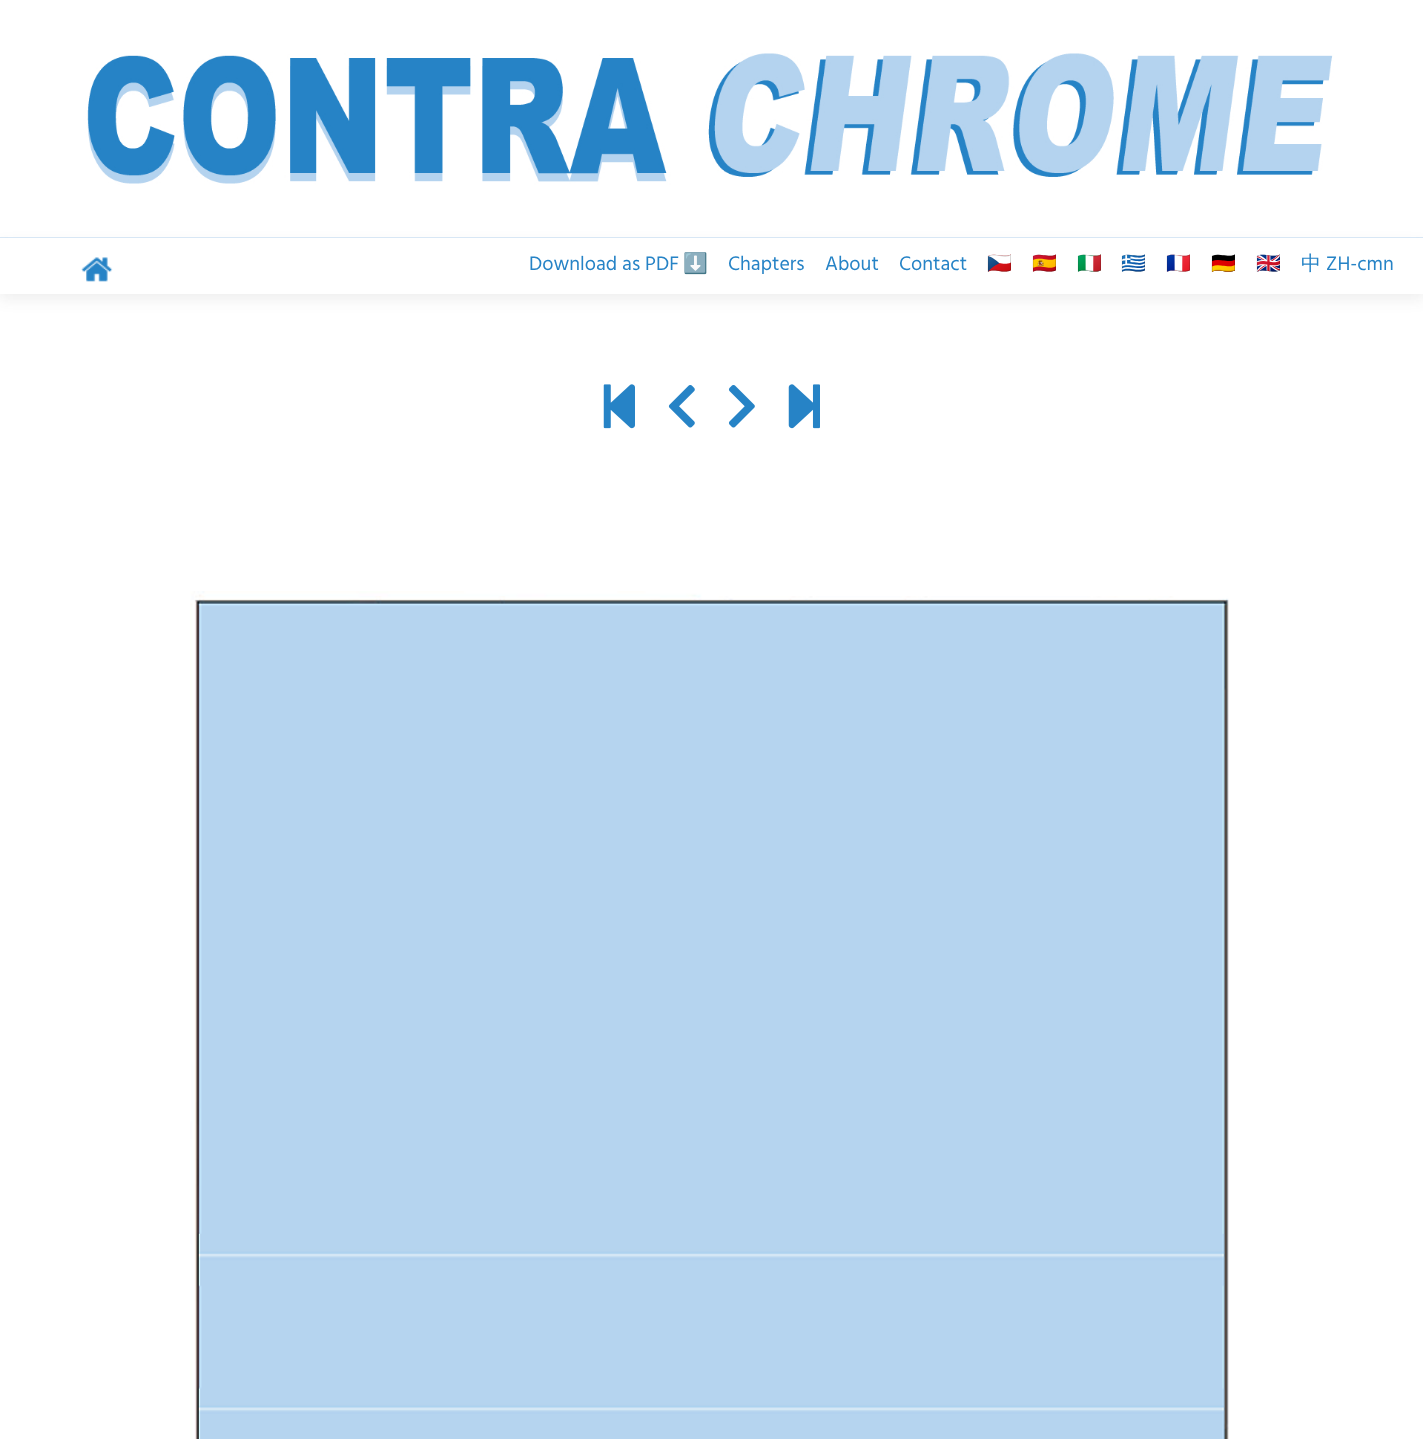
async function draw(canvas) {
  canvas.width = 1423
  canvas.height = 1439
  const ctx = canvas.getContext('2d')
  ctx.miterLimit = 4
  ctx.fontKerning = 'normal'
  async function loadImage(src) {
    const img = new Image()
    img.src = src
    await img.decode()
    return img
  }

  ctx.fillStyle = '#fff'
  ctx.fillRect(0, 0, 1423, 1439)
  ctx.fillStyle = '#b4d3ef'
  ctx.fillRect(0, 237, 1423, 1)
  ctx.drawImage(await loadImage('image0.png'), 0, 0, 1423, 238)
  ctx.fillStyle = '#32323214'
  ctx.filter = 'blur(7px)'
  ctx.beginPath()
  ctx.rect(0, 244, 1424, 56)
  ctx.fill()
  ctx.filter = 'none'
  ctx.fillStyle = '#fff'
  ctx.fillRect(0, 238, 1423, 56)
  ctx.drawImage(await loadImage('image1.png'), 81, 257, 32, 25)
  ctx.font = '20px Hind'
  ctx.fillStyle = '#2683c6'
  ctx.fillText('Download as PDF', 529, 270)
  ctx.font = '20px Noto Color Emoji'
  ctx.fillText('⬇️', 683, 270)
  ctx.font = '20px Hind'
  ctx.fillText('Chapters', 728, 270)
  ctx.fillText('About', 825, 270)
  ctx.fillText('Contact', 899, 270)
  ctx.font = '20px Noto Color Emoji'
  ctx.fillText('🇨🇿', 987, 270)
  ctx.fillText('🇪🇸', 1032, 270)
  ctx.fillText('🇮🇹', 1077, 270)
  ctx.fillText('🇬🇷', 1121, 270)
  ctx.fillText('🇫🇷', 1166, 270)
  ctx.fillText('🇩🇪', 1211, 270)
  ctx.fillText('🇬🇧', 1256, 270)
  ctx.font = '500 20px WenQuanYi Zen Hei'
  ctx.fillText('中', 1301, 270)
  ctx.font = '20px Hind'
  ctx.fillText('ZH-cmn', 1326, 270)
  ctx.drawImage(await loadImage('image2.png'), 603, 384, 32, 45)
  ctx.drawImage(await loadImage('image3.png'), 668, 385, 27, 43)
  ctx.drawImage(await loadImage('image4.png'), 728, 385, 27, 43)
  ctx.drawImage(await loadImage('image5.png'), 788, 384, 32, 45)
  ctx.drawImage(await loadImage('image6.png'), 190, 591, 1039, 848)
}

draw(document.querySelector('canvas'))
